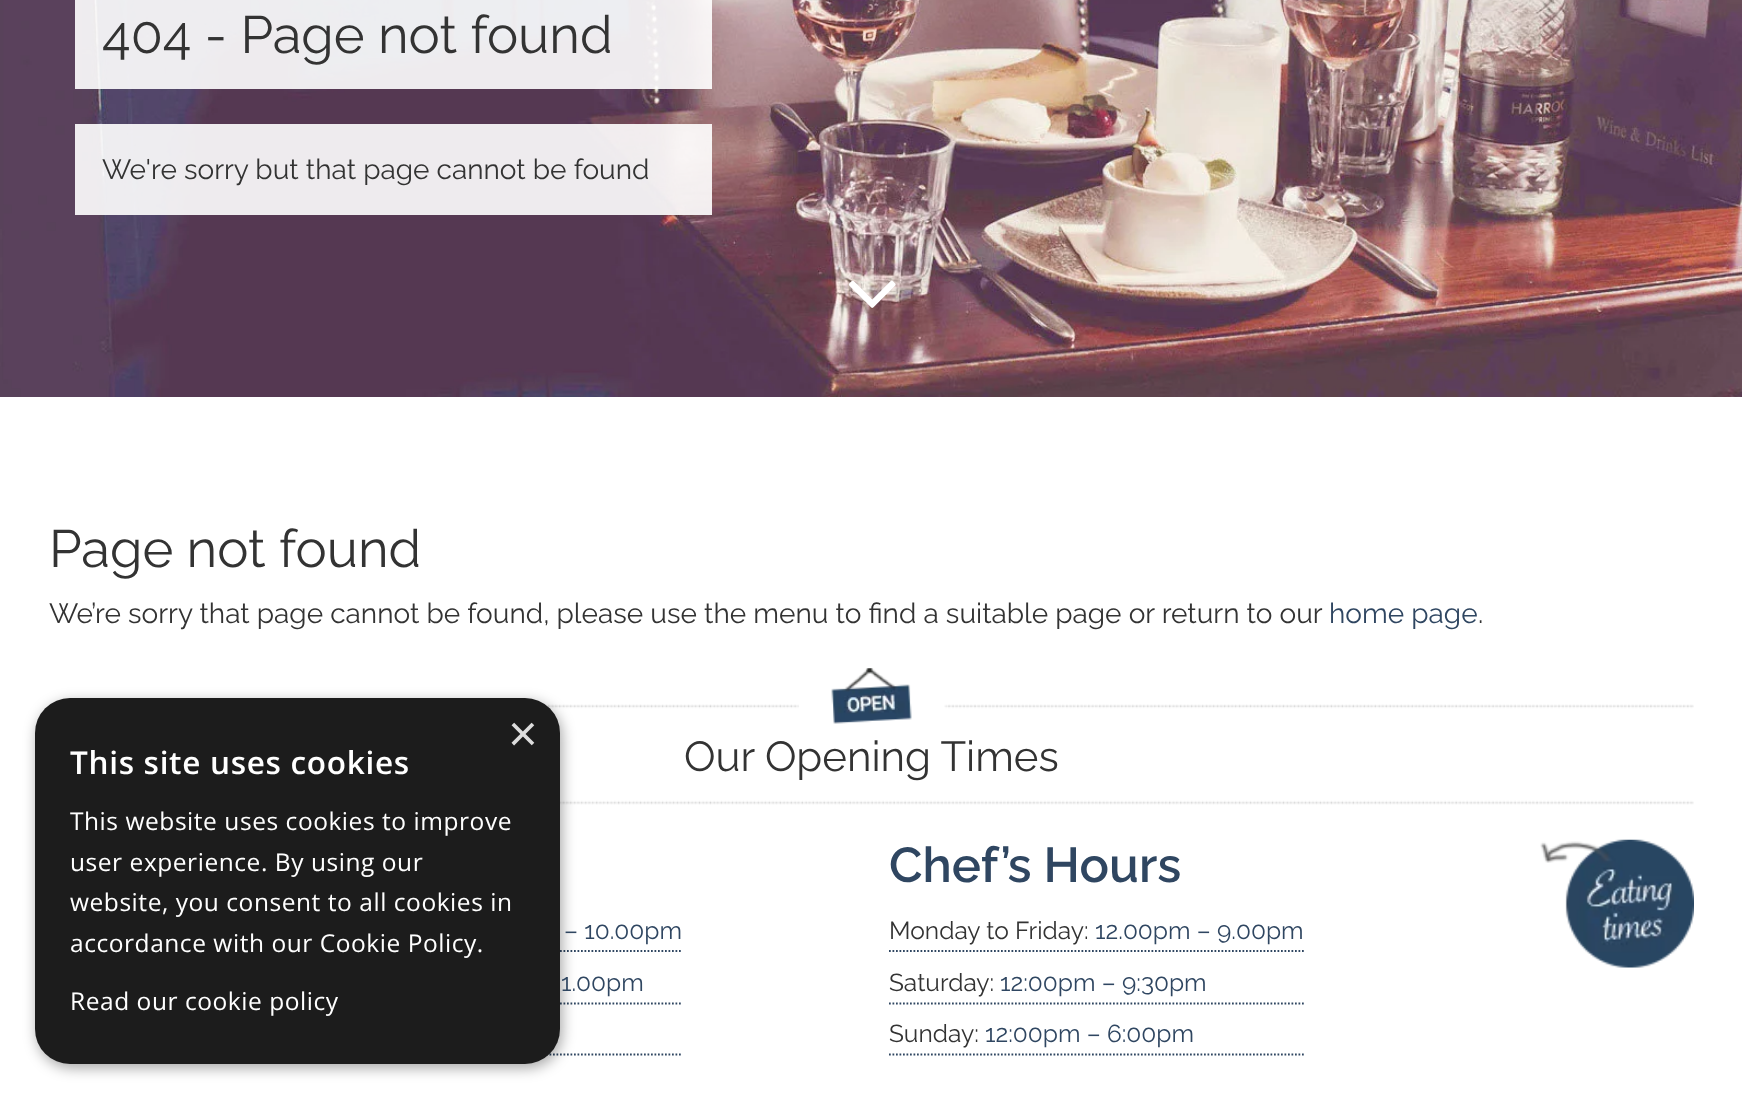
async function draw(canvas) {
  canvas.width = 1742
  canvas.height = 1099
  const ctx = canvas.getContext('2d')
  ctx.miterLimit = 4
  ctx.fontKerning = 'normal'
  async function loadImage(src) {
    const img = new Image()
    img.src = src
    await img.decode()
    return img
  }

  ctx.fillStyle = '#fff'
  ctx.fillRect(0, 0, 1742, 1099)
  ctx.drawImage(await loadImage('image0.png'), 0, 0, 1742, 397)
  ctx.fillStyle = '#ffffffe6'
  ctx.fillRect(75, 0, 637, 89)
  ctx.font = '52.5px Raleway'
  ctx.fillStyle = '#333'
  ctx.fillText('404 - Page not found', 102, 53)
  ctx.fillStyle = '#ffffffe6'
  ctx.fillRect(75, 124, 637, 91)
  ctx.font = '28px Raleway'
  ctx.fillStyle = '#333'
  ctx.fillText('We\'re sorry but that page cannot be found', 102, 179)
  ctx.drawImage(await loadImage('image1.png'), 848, 280, 48, 28)
  ctx.font = '52.5px Raleway'
  ctx.fillText('Page not found', 49, 567)
  ctx.font = '28px Raleway'
  ctx.fillText('We’re sorry that page cannot be found, please use the menu to find a suitable page or return to our', 49, 623)
  ctx.fillStyle = '#2f4661'
  ctx.fillText('home page', 1329, 623)
  ctx.fillStyle = '#333'
  ctx.fillText('.', 1478, 623)
  ctx.drawImage(await loadImage('image2.png'), 546, 668, 1148, 137)
  ctx.beginPath()
  ctx.moveTo(224, 951)
  ctx.lineTo(681, 951)
  ctx.strokeStyle = '#2f4661'
  ctx.lineWidth = 1.8
  ctx.setLineDash([1.75, 1.75])
  ctx.stroke()
  ctx.beginPath()
  ctx.moveTo(224, 1003.5)
  ctx.lineTo(681, 1003.5)
  ctx.stroke()
  ctx.beginPath()
  ctx.moveTo(224, 1054.5)
  ctx.lineTo(681, 1054.5)
  ctx.stroke()
  ctx.fillStyle = '#00000059'
  ctx.filter = 'blur(7px)'
  ctx.beginPath()
  ctx.roundRect(37, 702, 525, 366, 35)
  ctx.fill()
  ctx.filter = 'none'
  ctx.fillStyle = '#1c1c1c'
  ctx.beginPath()
  ctx.roundRect(35, 698, 525, 366, 35)
  ctx.fill()
  ctx.font = '51px Liberation Sans'
  ctx.fillStyle = '#ddd'
  ctx.fillText('×', 508, 751)
  ctx.letterSpacing = '0.7px'
  ctx.font = '600 31.5px Open Sans'
  ctx.fillStyle = '#fff'
  ctx.fillText('This site uses cookies', 70, 774)
  ctx.letterSpacing = '0.55px'
  ctx.font = '24.5px Open Sans'
  ctx.fillText('This website uses cookies to improve', 70, 830)
  ctx.fillText('user experience. By using our', 70, 871)
  ctx.fillText('website, you consent to all cookies in', 70, 911)
  ctx.fillText('accordance with our Cookie Policy.', 70, 952)
  ctx.fillText('Read our cookie policy', 70, 1010)
  ctx.letterSpacing = '0px'
  ctx.font = '42px Raleway'
  ctx.fillStyle = '#333'
  ctx.fillText('Our Opening Times', 684, 771)
  ctx.font = '24.5px Raleway'
  ctx.fillStyle = '#2f4661'
  ctx.fillText('– 10.00pm', 564, 939)
  ctx.fillText('1.00pm', 561, 991)
  ctx.drawImage(await loadImage('image3.png'), 1540, 839, 154, 129)
  ctx.font = '600 49px Raleway'
  ctx.fillText('Chef’s Hours', 889, 882)
  ctx.beginPath()
  ctx.moveTo(889, 951)
  ctx.lineTo(1304, 951)
  ctx.stroke()
  ctx.font = '24.5px Raleway'
  ctx.fillStyle = '#333'
  ctx.fillText('Monday to Friday:', 889, 939)
  ctx.fillStyle = '#2f4661'
  ctx.fillText('12.00pm – 9.00pm', 1095, 939)
  ctx.beginPath()
  ctx.moveTo(889, 1003.5)
  ctx.lineTo(1304, 1003.5)
  ctx.stroke()
  ctx.fillStyle = '#333'
  ctx.fillText('Saturday:', 889, 991)
  ctx.fillStyle = '#2f4661'
  ctx.fillText('12:00pm – 9:30pm', 1000, 991)
  ctx.beginPath()
  ctx.moveTo(889, 1054.5)
  ctx.lineTo(1304, 1054.5)
  ctx.stroke()
  ctx.fillStyle = '#333'
  ctx.fillText('Sunday:', 889, 1042)
  ctx.fillStyle = '#2f4661'
  ctx.fillText('12:00pm – 6:00pm', 985, 1042)
}

draw(document.querySelector('canvas'))
